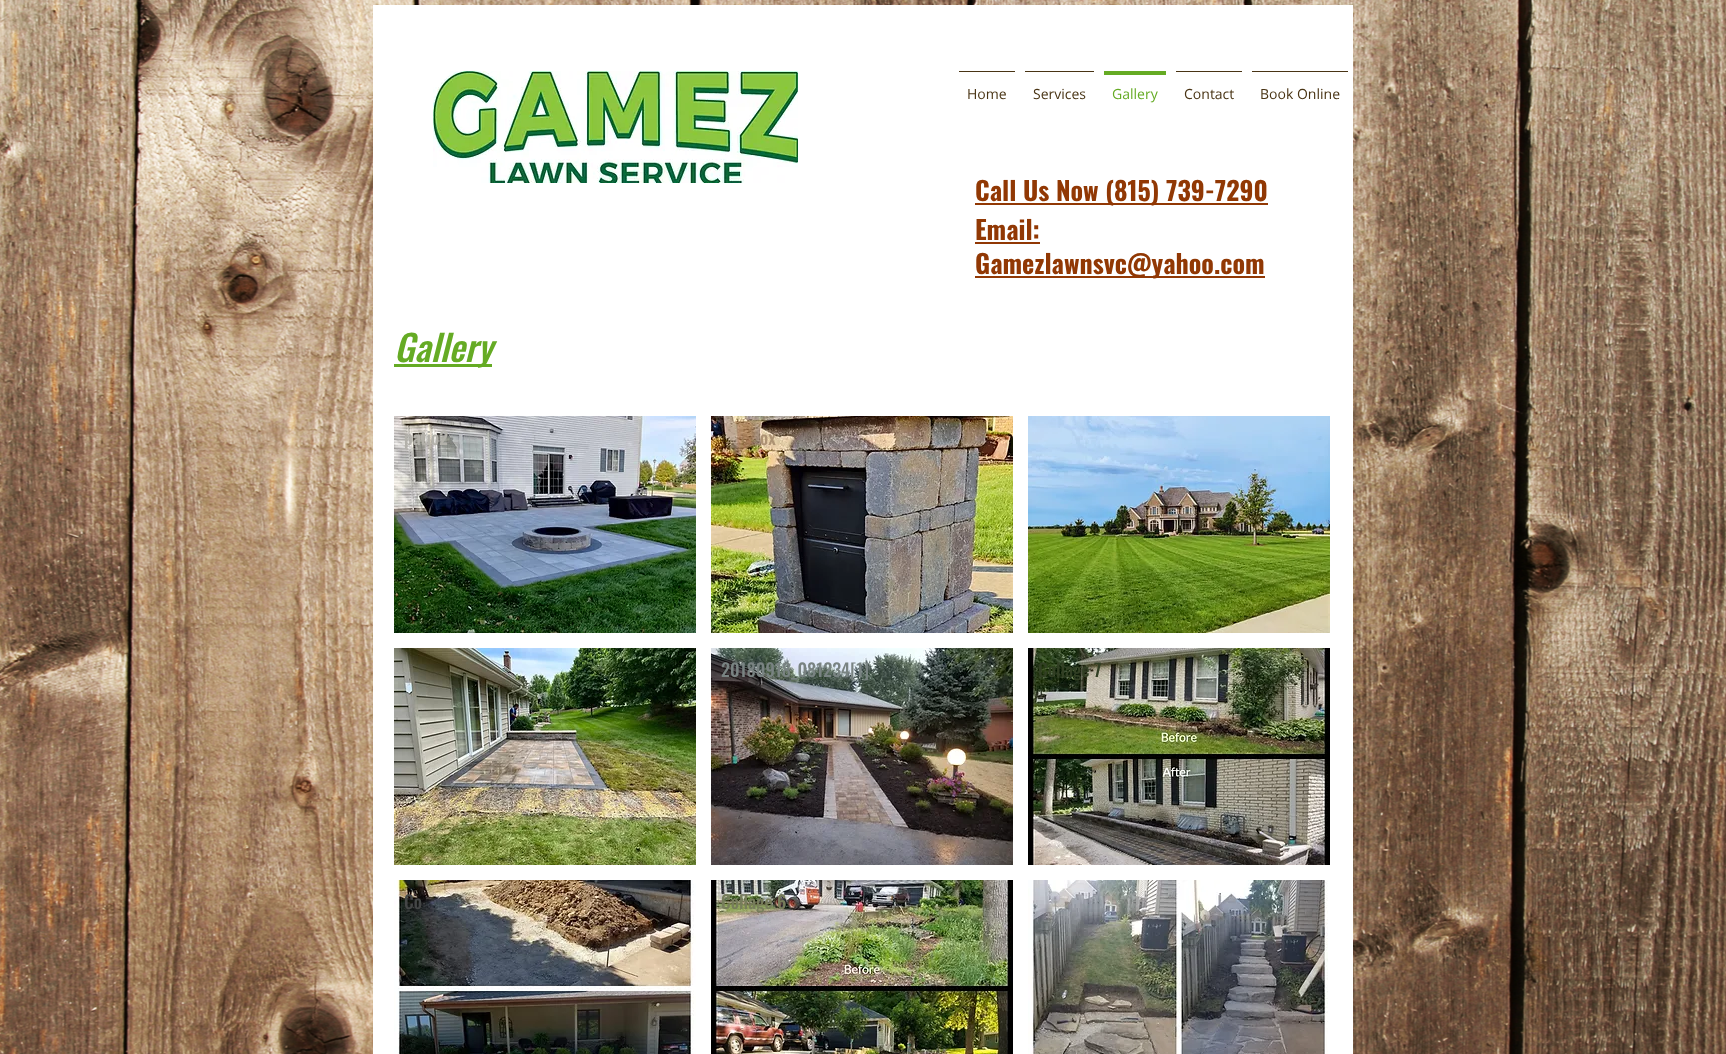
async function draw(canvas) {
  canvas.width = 1726
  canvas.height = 1054
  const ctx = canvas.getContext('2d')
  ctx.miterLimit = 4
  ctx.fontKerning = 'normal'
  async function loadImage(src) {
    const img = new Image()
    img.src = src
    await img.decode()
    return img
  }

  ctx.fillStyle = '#fff'
  ctx.fillRect(0, 0, 1726, 1054)
  ctx.drawImage(await loadImage('image0.png'), 0, 0, 1726, 1054)
  ctx.fillRect(373, 5, 980, 1049)
  ctx.drawImage(await loadImage('image1.png'), 433, 71, 365, 112)
  ctx.fillStyle = '#493414'
  ctx.fillRect(959, 71, 56, 1)
  ctx.font = '14px Open Sans'
  ctx.fillText('Home', 967, 99)
  ctx.fillRect(1025, 71, 69, 1)
  ctx.fillText('Services', 1033, 99)
  ctx.fillStyle = '#65ab24'
  ctx.fillRect(1104, 71, 62, 4)
  ctx.fillText('Gallery', 1112, 99)
  ctx.fillStyle = '#493414'
  ctx.fillRect(1176, 71, 66, 1)
  ctx.fillText('Contact', 1184, 99)
  ctx.fillRect(1252, 71, 96, 1)
  ctx.fillText('Book Online', 1260, 99)
  ctx.fillStyle = '#913804'
  ctx.fillRect(975, 203, 293, 2)
  ctx.font = 'bold 26px Oswald'
  ctx.fillText('Call Us Now (815) 739-7290', 975, 201)
  ctx.fillText('Email:', 975, 240)
  ctx.fillRect(975, 242, 65, 2)
  ctx.fillRect(975, 276, 290, 2)
  ctx.fillText('Gamezlawnsvc@yahoo.com', 975, 274)
  ctx.fillStyle = '#65ab24'
  ctx.fillRect(394, 364, 98, 3)
  ctx.font = 'italic 500 36px Oswald'
  ctx.fillText('Gallery', 394, 362)
  ctx.drawImage(await loadImage('image2.png'), 394, 416, 302, 217)
  ctx.font = '500 18px Oswald'
  ctx.fillStyle = '#b3b1aa'
  ctx.fillText('patio2', 404, 445)
  ctx.drawImage(await loadImage('image3.png'), 711, 416, 302, 217)
  ctx.fillStyle = '#ad9273'
  ctx.fillText('ox', 760, 445)
  ctx.drawImage(await loadImage('image4.png'), 1028, 416, 302, 217)
  ctx.drawImage(await loadImage('image5.png'), 394, 648, 302, 217)
  ctx.drawImage(await loadImage('image6.png'), 711, 648, 302, 217)
  ctx.fillStyle = '#798382'
  ctx.fillText('20180918_081234[1]', 721, 677)
  ctx.drawImage(await loadImage('image7.png'), 1028, 648, 302, 217)
  ctx.fillStyle = '#323f24'
  ctx.fillText('Collage 7', 1038, 677)
  ctx.drawImage(await loadImage('image8.png'), 394, 880, 302, 174)
  ctx.fillStyle = '#444646'
  ctx.fillText('Co', 404, 909)
  ctx.drawImage(await loadImage('image9.png'), 711, 880, 302, 174)
  ctx.fillStyle = '#777d5b'
  ctx.fillText('Collage 6', 721, 909)
  ctx.drawImage(await loadImage('image10.png'), 1028, 880, 300, 174)
}

draw(document.querySelector('canvas'))
